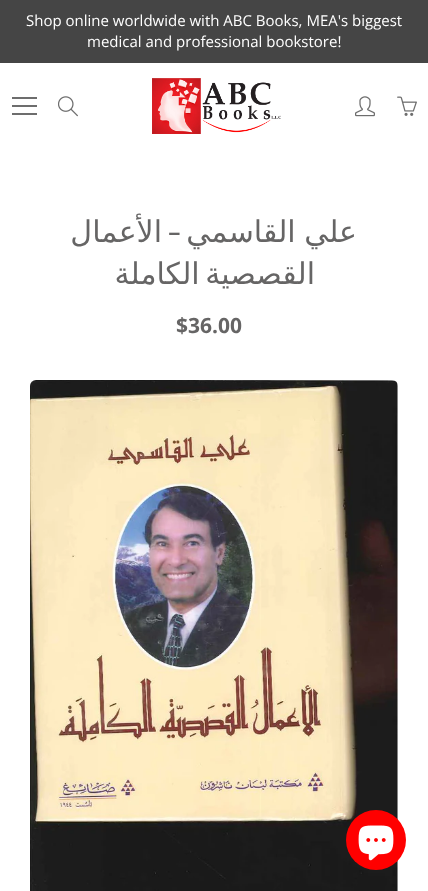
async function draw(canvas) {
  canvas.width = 428
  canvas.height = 891
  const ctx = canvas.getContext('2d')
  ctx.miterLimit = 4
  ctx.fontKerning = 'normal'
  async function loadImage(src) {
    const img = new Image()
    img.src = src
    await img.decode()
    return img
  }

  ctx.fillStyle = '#fff'
  ctx.fillRect(0, 0, 428, 891)
  ctx.fillStyle = '#454545'
  ctx.fillRect(0, 0, 428, 63)
  ctx.font = '15px Open Sans'
  ctx.fillStyle = '#fff'
  ctx.fillText('Shop online worldwide with ABC Books, MEA\'s biggest', 26, 26)
  ctx.fillText('medical and professional bookstore!', 87, 47)
  ctx.fillStyle = '#6d6d6d'
  ctx.fillRect(12, 105, 25, 2)
  ctx.fillRect(12, 97, 25, 2)
  ctx.fillRect(12, 113, 25, 2)
  ctx.drawImage(await loadImage('image0.png'), 58, 96, 20, 21)
  ctx.drawImage(await loadImage('image1.png'), 152, 78, 129, 56)
  ctx.drawImage(await loadImage('image2.png'), 355, 96, 20, 21)
  ctx.drawImage(await loadImage('image3.png'), 397, 96, 20, 20)
  ctx.direction = 'rtl'
  ctx.font = '30px DejaVu Sans'
  ctx.fillStyle = '#666565'
  ctx.fillText('الأعمال', 162, 242)
  ctx.font = '30px Instrument Sans'
  ctx.fillText('-', 182, 242)
  ctx.wordSpacing = '-1px'
  ctx.font = '30px DejaVu Sans'
  ctx.fillText('علي القاسمي', 357, 242)
  ctx.wordSpacing = '-4px'
  ctx.fillText('القصصية الكاملة', 315, 284)
  ctx.wordSpacing = '0px'
  ctx.direction = 'ltr'
  ctx.font = 'bold 21px Open Sans'
  ctx.fillText('$36.00', 176, 333)
  ctx.drawImage(await loadImage('image4.png'), 30, 380, 368, 511)
  ctx.fillStyle = '#f00'
  ctx.beginPath()
  ctx.arc(376, 840, 30, 0, 2 * Math.PI)
  ctx.fill()
  ctx.drawImage(await loadImage('image5.png'), 358, 825, 36, 36)
}

draw(document.querySelector('canvas'))
